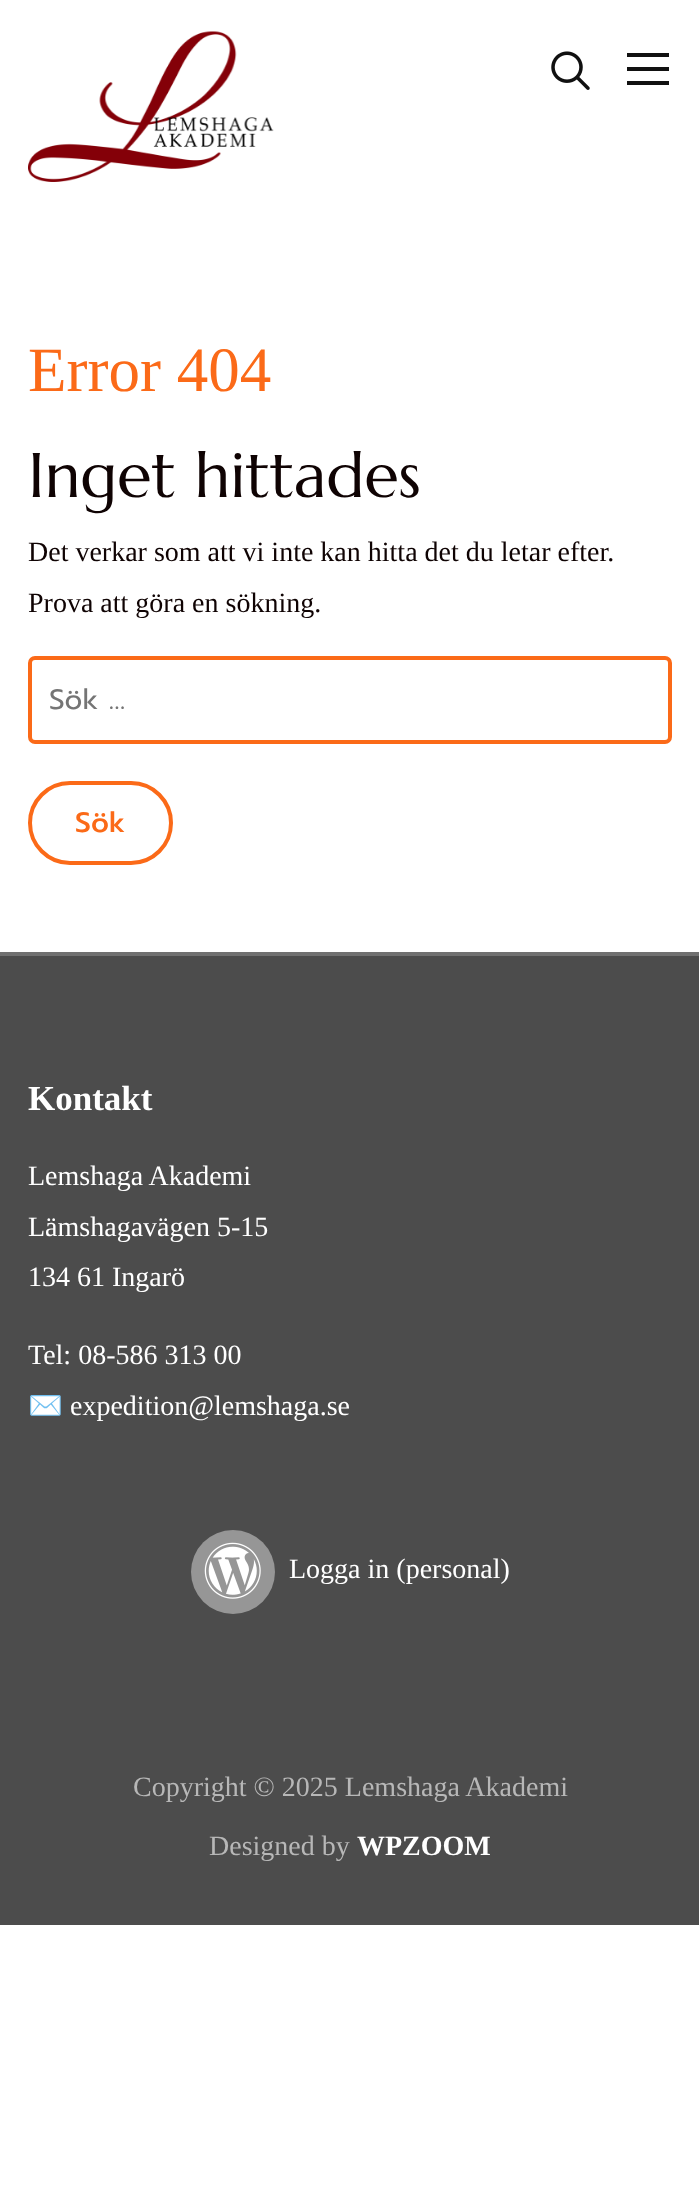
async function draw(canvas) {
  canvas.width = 699
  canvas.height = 2194
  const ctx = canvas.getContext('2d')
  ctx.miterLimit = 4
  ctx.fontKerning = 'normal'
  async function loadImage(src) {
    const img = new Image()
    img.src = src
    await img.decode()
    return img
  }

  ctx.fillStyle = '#fff'
  ctx.fillRect(0, 0, 699, 2194)
  ctx.drawImage(await loadImage('image0.png'), 28, 31, 246, 151)
  ctx.drawImage(await loadImage('image1.png'), 551, 51, 39, 39)
  ctx.fillStyle = '#111'
  ctx.fillRect(627, 53, 42, 4)
  ctx.fillRect(627, 67, 42, 4)
  ctx.fillRect(627, 81, 42, 4)
  ctx.font = '63px Liberation Serif'
  ctx.fillStyle = '#fb6a18'
  ctx.fillText('Error 404', 28, 391)
  ctx.font = '63px Marcellus'
  ctx.fillStyle = '#0f0303'
  ctx.fillText('Inget hittades', 28, 497)
  ctx.font = '28px Liberation Serif'
  ctx.fillText('Det verkar som att vi inte kan hitta det du letar efter.', 28, 561)
  ctx.fillText('Prova att göra en sökning.', 28, 612)
  ctx.beginPath()
  ctx.roundRect(30, 658, 640, 84, 5)
  ctx.strokeStyle = '#fb6a18'
  ctx.lineWidth = 4
  ctx.stroke()
  ctx.font = '28px Prompt'
  ctx.fillStyle = '#757575'
  ctx.fillText('Sök …', 49, 709)
  ctx.beginPath()
  ctx.roundRect(30, 783, 141, 80, 40)
  ctx.stroke()
  ctx.font = '500 28px Prompt'
  ctx.fillStyle = '#fb6a18'
  ctx.fillText('Sök', 75, 832)
  ctx.fillStyle = '#4c4c4c'
  ctx.fillRect(0, 956, 699, 969)
  ctx.fillStyle = '#707070'
  ctx.fillRect(0, 952, 699, 4)
  ctx.font = 'bold 35px Liberation Serif'
  ctx.fillStyle = '#fff'
  ctx.fillText('Kontakt', 28, 1110)
  ctx.font = '28px Liberation Serif'
  ctx.fillText('Lemshaga Akademi', 28, 1185)
  ctx.fillText('Lämshagavägen 5-15', 28, 1236)
  ctx.fillText('134 61 Ingarö', 28, 1286)
  ctx.fillText('Tel: 08-586 313 00', 28, 1364)
  ctx.font = '28px Noto Color Emoji'
  ctx.fillText('✉️', 28, 1415)
  ctx.font = '28px Liberation Serif'
  ctx.fillText('expedition@lemshaga.se', 70, 1415)
  ctx.fillStyle = '#969696'
  ctx.beginPath()
  ctx.arc(233, 1572, 42, 0, 2 * Math.PI)
  ctx.fill()
  ctx.drawImage(await loadImage('image2.png'), 204, 1542, 57, 57)
  ctx.fillStyle = '#fff'
  ctx.fillText('Logga in (personal)', 289, 1578)
  ctx.fillStyle = '#b7b7b7'
  ctx.fillText('Copyright © 2025 Lemshaga Akademi', 133, 1796)
  ctx.fillText('Designed by', 209, 1855)
  ctx.font = 'bold 28px Liberation Serif'
  ctx.fillStyle = '#fff'
  ctx.fillText('WPZOOM', 357, 1855)
}

draw(document.querySelector('canvas'))
